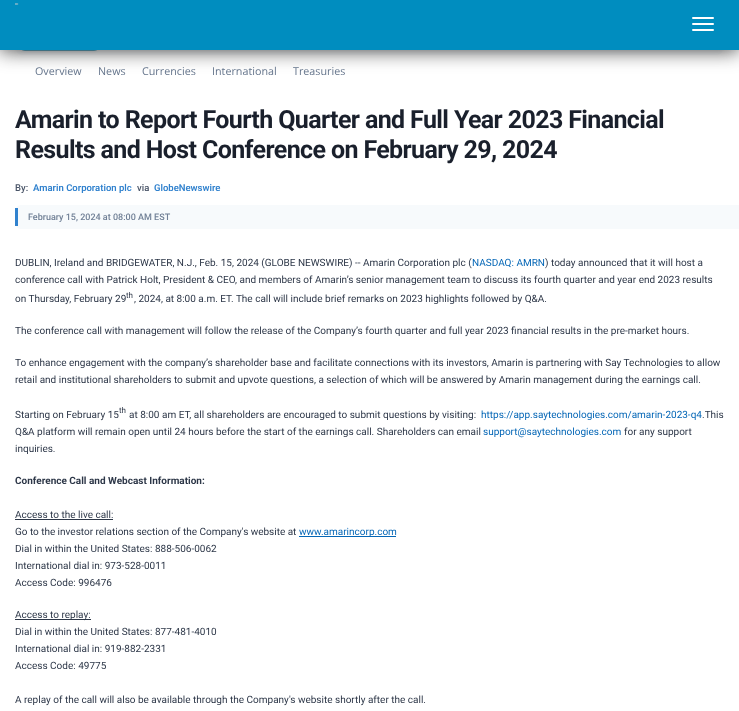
async function draw(canvas) {
  canvas.width = 739
  canvas.height = 711
  const ctx = canvas.getContext('2d')
  ctx.miterLimit = 4
  ctx.fontKerning = 'normal'
  async function loadImage(src) {
    const img = new Image()
    img.src = src
    await img.decode()
    return img
  }

  ctx.fillStyle = '#fff'
  ctx.fillRect(0, 0, 739, 711)
  ctx.fillStyle = '#f8fafc'
  ctx.beginPath()
  ctx.roundRect(15, 7, 709, 48, 8)
  ctx.fill()
  ctx.fillStyle = '#0000000d'
  ctx.filter = 'blur(1px)'
  ctx.beginPath()
  ctx.roundRect(19, 12, 81, 40, 6)
  ctx.fill()
  ctx.filter = 'none'
  ctx.fillStyle = '#4ca8c8'
  ctx.beginPath()
  ctx.roundRect(19, 11, 81, 40, 6)
  ctx.fill()
  ctx.fillStyle = '#333'
  ctx.filter = 'blur(10px)'
  ctx.beginPath()
  ctx.rect(0, 0, 739, 50)
  ctx.fill()
  ctx.filter = 'none'
  ctx.fillStyle = '#008dbf'
  ctx.fillRect(0, 0, 739, 50)
  ctx.drawImage(await loadImage('image0.png'), 15, 3, 4, 2)
  ctx.fillStyle = '#fff'
  ctx.beginPath()
  ctx.roundRect(692, 17, 22, 2, 1)
  ctx.fill()
  ctx.beginPath()
  ctx.roundRect(692, 23, 22, 2, 1)
  ctx.fill()
  ctx.beginPath()
  ctx.roundRect(692, 29, 22, 2, 1)
  ctx.fill()
  ctx.font = '10.75px Open Sans'
  ctx.fillStyle = '#64748b'
  ctx.fillText('Overview', 35, 75)
  ctx.fillText('News', 98, 75)
  ctx.fillText('Currencies', 142, 75)
  ctx.fillText('International', 212, 75)
  ctx.fillText('Treasuries', 293, 75)
  ctx.letterSpacing = '-0.62px'
  ctx.font = 'bold 25px Roboto'
  ctx.fillStyle = '#1a202c'
  ctx.fillText('Amarin to Report Fourth Quarter and Full Year 2023 Financial', 15, 128)
  ctx.fillText('Results and Host Conference on February 29, 2024', 15, 158)
  ctx.letterSpacing = '0px'
  ctx.font = '500 9.5px Roboto'
  ctx.fillStyle = '#4a5568'
  ctx.fillText('By:', 15, 191)
  ctx.font = '600 9.5px Roboto'
  ctx.fillStyle = '#3182ce'
  ctx.fillText('Amarin Corporation plc', 33, 191)
  ctx.font = '500 9.5px Roboto'
  ctx.fillStyle = '#4a5568'
  ctx.fillText('via', 137, 191)
  ctx.font = '600 9.5px Roboto'
  ctx.fillStyle = '#3182ce'
  ctx.fillText('GlobeNewswire', 154, 191)
  ctx.fillStyle = '#f7fafc'
  ctx.beginPath()
  ctx.roundRect(15, 205, 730, 24, 6)
  ctx.fill()
  ctx.fillStyle = '#3182ce'
  ctx.fillRect(15, 208, 3, 18)
  ctx.font = '500 9px Roboto'
  ctx.fillStyle = '#718096'
  ctx.fillText('February 15, 2024 at 08:00 AM EST', 28, 220)
  ctx.font = '10px Roboto'
  ctx.fillStyle = '#2d3748'
  ctx.fillText('DUBLIN, Ireland and BRIDGEWATER, N.J., Feb. 15, 2024 (GLOBE NEWSWIRE) -- Amarin Corporation plc (', 15, 266)
  ctx.fillStyle = '#0466b6'
  ctx.fillText('NASDAQ: AMRN', 472, 266)
  ctx.fillStyle = '#2d3748'
  ctx.fillText(') today announced that it will host a', 545, 266)
  ctx.fillText('conference call with Patrick Holt, President & CEO, and members of Amarin’s senior management team to discuss its fourth quarter and year end 2023 results', 15, 283)
  ctx.fillText('on Thursday, February 29', 15, 302)
  ctx.font = '8px Roboto'
  ctx.fillText('th', 126, 298)
  ctx.font = '10px Roboto'
  ctx.fillText(', 2024, at 8:00 a.m. ET. The call will include brief remarks on 2023 highlights followed by Q&A.', 134, 302)
  ctx.fillText('The conference call with management will follow the release of the Company’s fourth quarter and full year 2023 financial results in the pre-market hours.', 15, 334)
  ctx.fillText('To enhance engagement with the company’s shareholder base and facilitate connections with its investors, Amarin is partnering with Say Technologies to allow', 15, 366)
  ctx.fillText('retail and institutional shareholders to submit and upvote questions, a selection of which will be answered by Amarin management during the earnings call.', 15, 383)
  ctx.fillText('Starting on February 15', 15, 418)
  ctx.font = '8px Roboto'
  ctx.fillText('th', 119, 413)
  ctx.font = '10px Roboto'
  ctx.fillText('at 8:00 am ET, all shareholders are encouraged to submit questions by visiting:', 129, 418)
  ctx.fillStyle = '#0466b6'
  ctx.fillText('https://app.saytechnologies.com/amarin-2023-q4', 481, 418)
  ctx.fillStyle = '#2d3748'
  ctx.fillText('.This', 702, 418)
  ctx.fillText('Q&A platform will remain open until 24 hours before the start of the earnings call. Shareholders can email', 15, 435)
  ctx.fillStyle = '#0466b6'
  ctx.fillText('support@saytechnologies.com', 483, 435)
  ctx.fillStyle = '#2d3748'
  ctx.fillText('for any support', 624, 435)
  ctx.fillText('inquiries.', 15, 452)
  ctx.font = 'bold 10px Roboto'
  ctx.fillText('Conference Call and Webcast Information:', 15, 484)
  ctx.font = '10px Roboto'
  ctx.fillText('Access to the live call:', 15, 518)
  ctx.fillRect(15, 519, 98, 1)
  ctx.wordSpacing = '-0.1px'
  ctx.fillText('Go to the investor relations section of the Company\'s website at', 15, 535)
  ctx.fillStyle = '#0466b6'
  ctx.fillRect(299, 536, 97, 1)
  ctx.wordSpacing = '0px'
  ctx.fillText('www.amarincorp.com', 299, 535)
  ctx.fillStyle = '#2d3748'
  ctx.fillText('Dial in within the United States: 888-506-0062', 15, 552)
  ctx.fillText('International dial in: 973-528-0011', 15, 569)
  ctx.fillText('Access Code: 996476', 15, 586)
  ctx.fillRect(15, 619, 76, 1)
  ctx.fillText('Access to replay:', 15, 618)
  ctx.fillText('Dial in within the United States: 877-481-4010', 15, 635)
  ctx.fillText('International dial in: 919-882-2331', 15, 652)
  ctx.fillText('Access Code: 49775', 15, 669)
  ctx.fillText('A replay of the call will also be available through the Company\'s website shortly after the call.', 15, 703)
}

draw(document.querySelector('canvas'))
